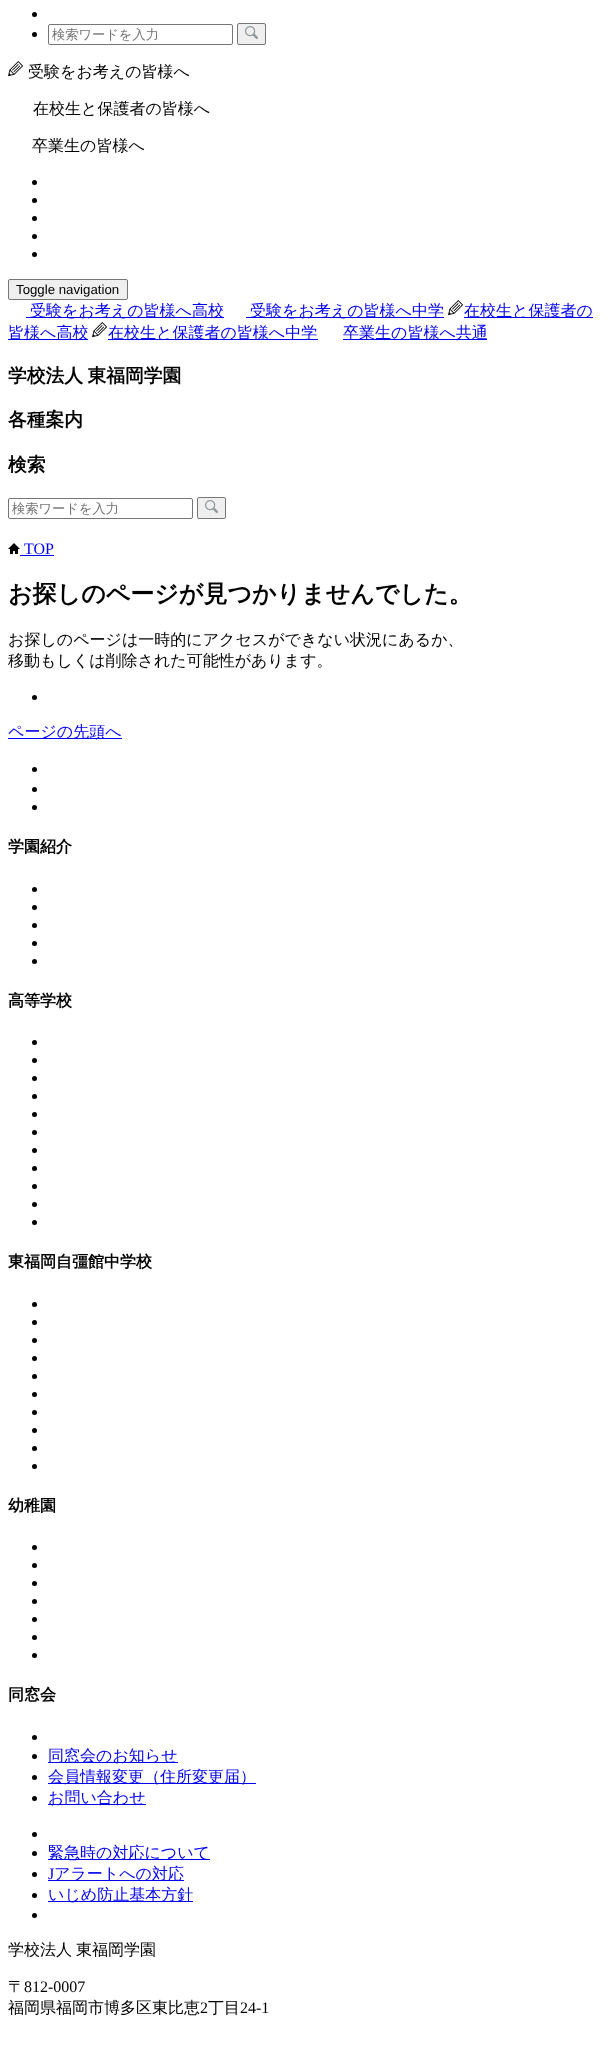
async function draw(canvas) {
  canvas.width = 609
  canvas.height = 2045
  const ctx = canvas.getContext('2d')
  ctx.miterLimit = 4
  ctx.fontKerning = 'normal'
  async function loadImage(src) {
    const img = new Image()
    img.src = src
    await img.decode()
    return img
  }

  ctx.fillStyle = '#fff'
  ctx.fillRect(0, 0, 609, 2045)
  ctx.fillStyle = '#000'
  ctx.beginPath()
  ctx.arc(34.5, 14.5, 2.5, 0, 2 * Math.PI)
  ctx.fill()
  ctx.beginPath()
  ctx.arc(34.5, 34.5, 2.5, 0, 2 * Math.PI)
  ctx.fill()
  ctx.beginPath()
  ctx.roundRect(48.5, 24.5, 184, 20, 1.5)
  ctx.strokeStyle = '#767676'
  ctx.stroke()
  ctx.font = '500 13.25px WenQuanYi Zen Hei'
  ctx.fillStyle = '#757575'
  ctx.fillText('検索ワードを入力', 52, 39)
  ctx.fillStyle = '#efefef'
  ctx.beginPath()
  ctx.roundRect(237.5, 23.5, 28, 21, 1.5)
  ctx.fill()
  ctx.stroke()
  ctx.drawImage(await loadImage('image0.png'), 245, 26, 13, 13)
  ctx.drawImage(await loadImage('image1.png'), 8, 61, 16, 16)
  ctx.font = '500 16px WenQuanYi Zen Hei'
  ctx.fillStyle = '#000'
  ctx.fillText('受験をお考えの皆様へ', 28, 77)
  ctx.fillText('在校生と保護者の皆様へ', 33, 114)
  ctx.fillText('卒業生の皆様へ', 32, 151)
  ctx.beginPath()
  ctx.arc(34.5, 182.5, 2.5, 0, 2 * Math.PI)
  ctx.fill()
  ctx.beginPath()
  ctx.arc(34.5, 200.5, 2.5, 0, 2 * Math.PI)
  ctx.fill()
  ctx.beginPath()
  ctx.arc(34.5, 218.5, 2.5, 0, 2 * Math.PI)
  ctx.fill()
  ctx.beginPath()
  ctx.arc(34.5, 236.5, 2.5, 0, 2 * Math.PI)
  ctx.fill()
  ctx.beginPath()
  ctx.arc(34.5, 254.5, 2.5, 0, 2 * Math.PI)
  ctx.fill()
  ctx.fillStyle = '#efefef'
  ctx.beginPath()
  ctx.roundRect(8.5, 279.5, 119, 20, 1.5)
  ctx.fill()
  ctx.stroke()
  ctx.font = '13.25px Liberation Sans'
  ctx.fillStyle = '#000'
  ctx.fillText('Toggle navigation', 16, 294)
  ctx.fillStyle = '#00e'
  ctx.fillRect(26, 317, 198, 1)
  ctx.font = '500 16px WenQuanYi Zen Hei'
  ctx.fillText('受験をお考えの皆様へ高校', 30, 316)
  ctx.fillRect(246, 317, 198, 1)
  ctx.fillText('受験をお考えの皆様へ中学', 250, 316)
  ctx.fillRect(464, 317, 129, 1)
  ctx.fillText('在校生と保護者の', 464, 316)
  ctx.drawImage(await loadImage('image2.png'), 448, 300, 16, 16)
  ctx.fillRect(8, 339, 80, 1)
  ctx.fillText('皆様へ高校', 8, 338)
  ctx.drawImage(await loadImage('image1.png'), 92, 322, 16, 16)
  ctx.fillRect(108, 339, 210, 1)
  ctx.fillText('在校生と保護者の皆様へ中学', 108, 338)
  ctx.fillRect(343, 339, 144, 1)
  ctx.fillText('卒業生の皆様へ共通', 343, 338)
  ctx.wordSpacing = '-1px'
  ctx.font = 'bold 18.75px WenQuanYi Zen Hei'
  ctx.fillStyle = '#000'
  ctx.fillText('学校法人 東福岡学園', 8, 382)
  ctx.wordSpacing = '0px'
  ctx.fillText('各種案内', 8, 426)
  ctx.fillText('検索', 8, 471)
  ctx.beginPath()
  ctx.roundRect(8.5, 498.5, 184, 20, 1.5)
  ctx.stroke()
  ctx.font = '500 13.25px WenQuanYi Zen Hei'
  ctx.fillStyle = '#757575'
  ctx.fillText('検索ワードを入力', 12, 513)
  ctx.fillStyle = '#efefef'
  ctx.beginPath()
  ctx.roundRect(197.5, 497.5, 28, 21, 1.5)
  ctx.fill()
  ctx.stroke()
  ctx.drawImage(await loadImage('image0.png'), 205, 500, 13, 13)
  ctx.drawImage(await loadImage('image3.png'), 8, 543, 12, 11)
  ctx.font = '16px Liberation Serif'
  ctx.fillStyle = '#00e'
  ctx.fillText('TOP', 24, 554)
  ctx.fillRect(20, 555, 34, 1)
  ctx.font = 'bold 24px WenQuanYi Zen Hei'
  ctx.fillStyle = '#000'
  ctx.fillText('お探しのページが見つかりませんでした。', 8, 602)
  ctx.font = '500 16px WenQuanYi Zen Hei'
  ctx.fillText('お探しのページは一時的にアクセスができない状況にあるか、', 8, 645)
  ctx.fillText('移動もしくは削除された可能性があります。', 8, 666)
  ctx.beginPath()
  ctx.arc(34.5, 697.5, 2.5, 0, 2 * Math.PI)
  ctx.fill()
  ctx.fillStyle = '#00e'
  ctx.fillRect(8, 738, 114, 1)
  ctx.fillText('ページの先頭へ', 8, 737)
  ctx.fillStyle = '#000'
  ctx.beginPath()
  ctx.arc(34.5, 769.5, 2.5, 0, 2 * Math.PI)
  ctx.fill()
  ctx.beginPath()
  ctx.arc(34.5, 789.5, 2.5, 0, 2 * Math.PI)
  ctx.fill()
  ctx.beginPath()
  ctx.arc(34.5, 807.5, 2.5, 0, 2 * Math.PI)
  ctx.fill()
  ctx.font = 'bold 16px WenQuanYi Zen Hei'
  ctx.fillText('学園紹介', 8, 852)
  ctx.beginPath()
  ctx.arc(34.5, 889.5, 2.5, 0, 2 * Math.PI)
  ctx.fill()
  ctx.beginPath()
  ctx.arc(34.5, 907.5, 2.5, 0, 2 * Math.PI)
  ctx.fill()
  ctx.beginPath()
  ctx.arc(34.5, 925.5, 2.5, 0, 2 * Math.PI)
  ctx.fill()
  ctx.beginPath()
  ctx.arc(34.5, 943.5, 2.5, 0, 2 * Math.PI)
  ctx.fill()
  ctx.beginPath()
  ctx.arc(34.5, 961.5, 2.5, 0, 2 * Math.PI)
  ctx.fill()
  ctx.fillText('高等学校', 8, 1006)
  ctx.beginPath()
  ctx.arc(34.5, 1042.5, 2.5, 0, 2 * Math.PI)
  ctx.fill()
  ctx.beginPath()
  ctx.arc(34.5, 1060.5, 2.5, 0, 2 * Math.PI)
  ctx.fill()
  ctx.beginPath()
  ctx.arc(34.5, 1078.5, 2.5, 0, 2 * Math.PI)
  ctx.fill()
  ctx.beginPath()
  ctx.arc(34.5, 1096.5, 2.5, 0, 2 * Math.PI)
  ctx.fill()
  ctx.beginPath()
  ctx.arc(34.5, 1114.5, 2.5, 0, 2 * Math.PI)
  ctx.fill()
  ctx.beginPath()
  ctx.arc(34.5, 1132.5, 2.5, 0, 2 * Math.PI)
  ctx.fill()
  ctx.beginPath()
  ctx.arc(34.5, 1150.5, 2.5, 0, 2 * Math.PI)
  ctx.fill()
  ctx.beginPath()
  ctx.arc(34.5, 1168.5, 2.5, 0, 2 * Math.PI)
  ctx.fill()
  ctx.beginPath()
  ctx.arc(34.5, 1186.5, 2.5, 0, 2 * Math.PI)
  ctx.fill()
  ctx.beginPath()
  ctx.arc(34.5, 1204.5, 2.5, 0, 2 * Math.PI)
  ctx.fill()
  ctx.beginPath()
  ctx.arc(34.5, 1222.5, 2.5, 0, 2 * Math.PI)
  ctx.fill()
  ctx.fillText('東福岡自彊館中学校', 8, 1267)
  ctx.beginPath()
  ctx.arc(34.5, 1304.5, 2.5, 0, 2 * Math.PI)
  ctx.fill()
  ctx.beginPath()
  ctx.arc(34.5, 1322.5, 2.5, 0, 2 * Math.PI)
  ctx.fill()
  ctx.beginPath()
  ctx.arc(34.5, 1340.5, 2.5, 0, 2 * Math.PI)
  ctx.fill()
  ctx.beginPath()
  ctx.arc(34.5, 1358.5, 2.5, 0, 2 * Math.PI)
  ctx.fill()
  ctx.beginPath()
  ctx.arc(34.5, 1376.5, 2.5, 0, 2 * Math.PI)
  ctx.fill()
  ctx.beginPath()
  ctx.arc(34.5, 1394.5, 2.5, 0, 2 * Math.PI)
  ctx.fill()
  ctx.beginPath()
  ctx.arc(34.5, 1412.5, 2.5, 0, 2 * Math.PI)
  ctx.fill()
  ctx.beginPath()
  ctx.arc(34.5, 1430.5, 2.5, 0, 2 * Math.PI)
  ctx.fill()
  ctx.beginPath()
  ctx.arc(34.5, 1448.5, 2.5, 0, 2 * Math.PI)
  ctx.fill()
  ctx.beginPath()
  ctx.arc(34.5, 1466.5, 2.5, 0, 2 * Math.PI)
  ctx.fill()
  ctx.fillText('幼稚園', 8, 1511)
  ctx.beginPath()
  ctx.arc(34.5, 1547.5, 2.5, 0, 2 * Math.PI)
  ctx.fill()
  ctx.beginPath()
  ctx.arc(34.5, 1565.5, 2.5, 0, 2 * Math.PI)
  ctx.fill()
  ctx.beginPath()
  ctx.arc(34.5, 1583.5, 2.5, 0, 2 * Math.PI)
  ctx.fill()
  ctx.beginPath()
  ctx.arc(34.5, 1601.5, 2.5, 0, 2 * Math.PI)
  ctx.fill()
  ctx.beginPath()
  ctx.arc(34.5, 1619.5, 2.5, 0, 2 * Math.PI)
  ctx.fill()
  ctx.beginPath()
  ctx.arc(34.5, 1637.5, 2.5, 0, 2 * Math.PI)
  ctx.fill()
  ctx.beginPath()
  ctx.arc(34.5, 1655.5, 2.5, 0, 2 * Math.PI)
  ctx.fill()
  ctx.fillText('同窓会', 8, 1700)
  ctx.beginPath()
  ctx.arc(34.5, 1737.5, 2.5, 0, 2 * Math.PI)
  ctx.fill()
  ctx.beginPath()
  ctx.arc(34.5, 1756.5, 2.5, 0, 2 * Math.PI)
  ctx.fill()
  ctx.fillStyle = '#00e'
  ctx.fillRect(48, 1762, 130, 1)
  ctx.font = '500 16px WenQuanYi Zen Hei'
  ctx.fillText('同窓会のお知らせ', 48, 1761)
  ctx.fillStyle = '#000'
  ctx.beginPath()
  ctx.arc(34.5, 1777.5, 2.5, 0, 2 * Math.PI)
  ctx.fill()
  ctx.fillStyle = '#00e'
  ctx.fillRect(48, 1783, 208, 1)
  ctx.fillText('会員情報変更（住所変更届）', 48, 1782)
  ctx.fillStyle = '#000'
  ctx.beginPath()
  ctx.arc(34.5, 1798.5, 2.5, 0, 2 * Math.PI)
  ctx.fill()
  ctx.fillStyle = '#00e'
  ctx.fillRect(48, 1804, 98, 1)
  ctx.fillText('お問い合わせ', 48, 1803)
  ctx.fillStyle = '#000'
  ctx.beginPath()
  ctx.arc(34.5, 1834.5, 2.5, 0, 2 * Math.PI)
  ctx.fill()
  ctx.beginPath()
  ctx.arc(34.5, 1853.5, 2.5, 0, 2 * Math.PI)
  ctx.fill()
  ctx.fillStyle = '#00e'
  ctx.fillRect(48, 1859, 162, 1)
  ctx.fillText('緊急時の対応について', 48, 1858)
  ctx.fillStyle = '#000'
  ctx.beginPath()
  ctx.arc(34.5, 1874.5, 2.5, 0, 2 * Math.PI)
  ctx.fill()
  ctx.font = '16px Liberation Serif'
  ctx.fillStyle = '#00e'
  ctx.fillText('J', 48, 1879)
  ctx.fillRect(48, 1880, 136, 1)
  ctx.font = '500 16px WenQuanYi Zen Hei'
  ctx.fillText('アラートへの対応', 54, 1879)
  ctx.fillStyle = '#000'
  ctx.beginPath()
  ctx.arc(34.5, 1895.5, 2.5, 0, 2 * Math.PI)
  ctx.fill()
  ctx.fillStyle = '#00e'
  ctx.fillRect(48, 1901, 145, 1)
  ctx.fillText('いじめ防止基本方針', 48, 1900)
  ctx.fillStyle = '#000'
  ctx.beginPath()
  ctx.arc(34.5, 1915.5, 2.5, 0, 2 * Math.PI)
  ctx.fill()
  ctx.fillText('学校法人', 8, 1955)
  ctx.fillText('東福岡学園', 76, 1955)
  ctx.fillText('〒', 8, 1992)
  ctx.font = '16px Liberation Serif'
  ctx.fillText('812-0007', 24, 1992)
  ctx.font = '500 16px WenQuanYi Zen Hei'
  ctx.fillText('福岡県福岡市博多区東比恵', 8, 2013)
  ctx.font = '16px Liberation Serif'
  ctx.fillText('2', 200, 2013)
  ctx.font = '500 16px WenQuanYi Zen Hei'
  ctx.fillText('丁目', 208, 2013)
  ctx.font = '16px Liberation Serif'
  ctx.fillText('24-1', 240, 2013)
}

draw(document.querySelector('canvas'))
